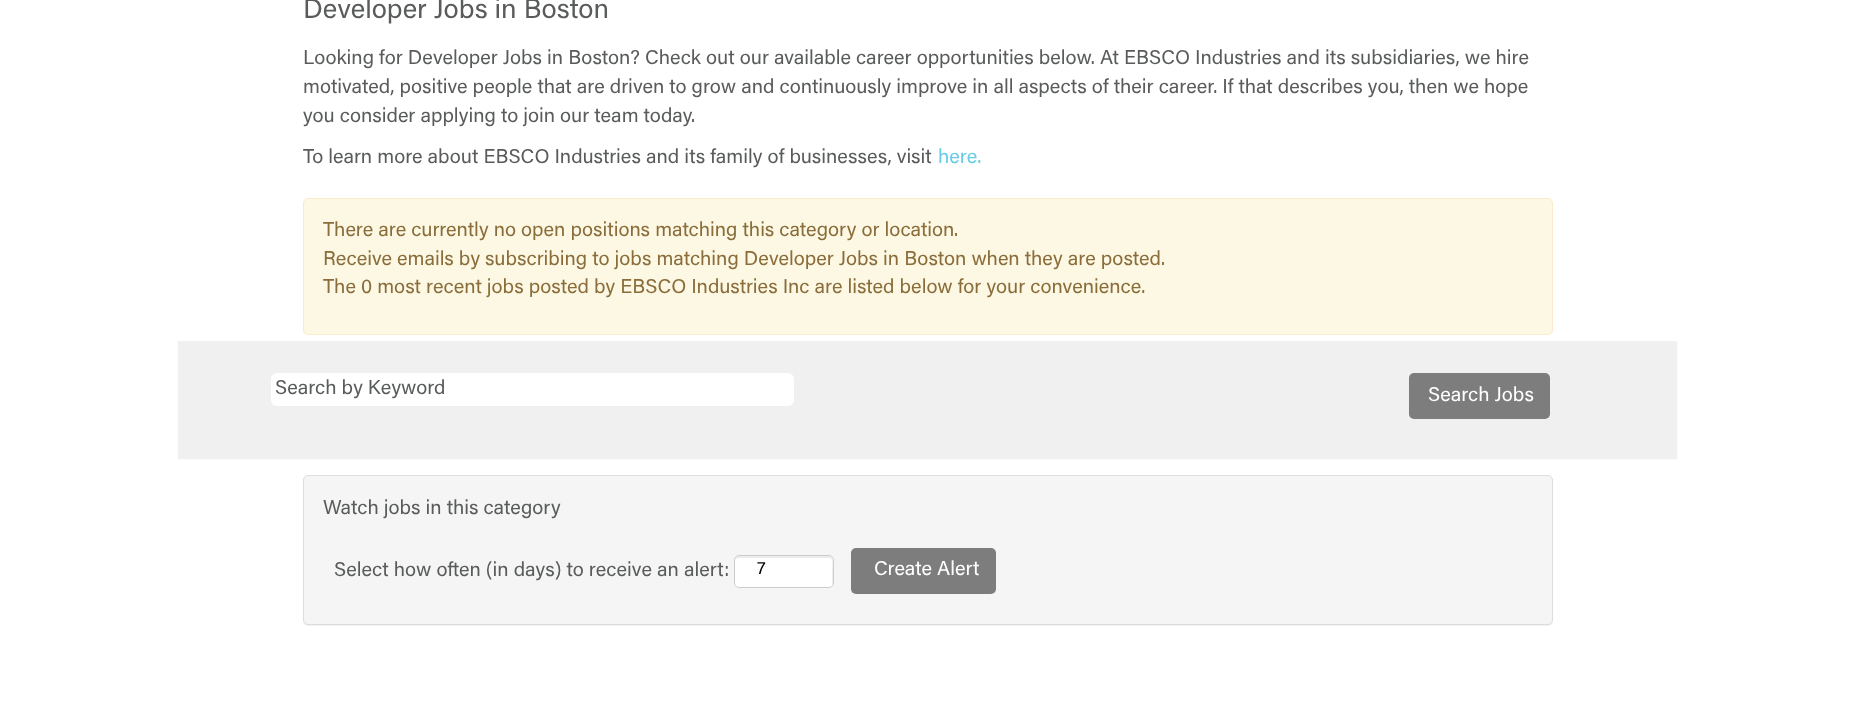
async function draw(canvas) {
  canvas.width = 1854
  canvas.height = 711
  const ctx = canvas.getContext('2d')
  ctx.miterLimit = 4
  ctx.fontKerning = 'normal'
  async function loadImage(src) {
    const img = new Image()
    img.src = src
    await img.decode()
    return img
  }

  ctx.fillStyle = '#fff'
  ctx.fillRect(0, 0, 1854, 711)
  ctx.font = '27.5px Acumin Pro'
  ctx.fillStyle = '#5a5c5c'
  ctx.fillText('Developer Jobs in Boston', 303, 18)
  ctx.font = '20px Acumin Pro'
  ctx.fillText('Looking for Developer Jobs in Boston? Check out our available career opportunities below. At EBSCO Industries and its subsidiaries, we hire', 303, 64)
  ctx.fillText('motivated, positive people that are driven to grow and continuously improve in all aspects of their career. If that describes you, then we hope', 303, 93)
  ctx.fillText('you consider applying to join our team today.', 303, 122)
  ctx.fillText('To learn more about EBSCO Industries and its family of businesses, visit', 303, 163)
  ctx.fillStyle = '#69cce5'
  ctx.fillText('here.', 938, 163)
  ctx.fillStyle = '#fcf8e3'
  ctx.beginPath()
  ctx.roundRect(303.5, 198.5, 1249, 136, 4.5)
  ctx.fill()
  ctx.strokeStyle = '#faebcc'
  ctx.stroke()
  ctx.fillStyle = '#8a6d3b'
  ctx.fillText('There are currently no open positions matching this category or location.', 323, 236)
  ctx.fillText('Receive emails by subscribing to jobs matching Developer Jobs in Boston when they are posted.', 323, 265)
  ctx.fillText('The 0 most recent jobs posted by EBSCO Industries Inc are listed below for your convenience.', 323, 293)
  ctx.drawImage(await loadImage('image0.png'), 177, 341, 1501, 119)
  ctx.fillStyle = '#fff'
  ctx.beginPath()
  ctx.roundRect(271, 373, 523, 33, 6)
  ctx.fill()
  ctx.fillStyle = '#5a5c5c'
  ctx.fillText('Search by Keyword', 275, 394)
  ctx.fillStyle = '#7d7d7d'
  ctx.beginPath()
  ctx.roundRect(1409, 373, 141, 46, 5)
  ctx.fill()
  ctx.fillStyle = '#fff'
  ctx.fillText('Search Jobs', 1428, 401)
  ctx.fillStyle = '#0000000d'
  ctx.filter = 'blur(0.5px)'
  ctx.beginPath()
  ctx.roundRect(303, 476, 1250, 150, 5)
  ctx.fill()
  ctx.filter = 'none'
  ctx.fillStyle = '#f5f5f5'
  ctx.beginPath()
  ctx.roundRect(303.5, 475.5, 1249, 149, 4.5)
  ctx.fill()
  ctx.strokeStyle = '#ddd'
  ctx.stroke()
  ctx.fillStyle = '#5a5c5c'
  ctx.fillText('Watch jobs in this category', 323, 514)
  ctx.fillText('Select how often (in days) to receive an alert:', 334, 576)
  ctx.fillStyle = '#fff'
  ctx.beginPath()
  ctx.roundRect(734, 555, 100, 33, 5)
  ctx.fill()
  ctx.fillStyle = '#ececec'
  ctx.beginPath()
  ctx.moveTo(739, 558)
  ctx.lineTo(829, 558)
  ctx.bezierCurveTo(834, 558, 832, 566, 832, 569)
  ctx.lineTo(832, 585)
  ctx.bezierCurveTo(834, 582, 833, 574, 833, 571)
  ctx.bezierCurveTo(833, 553, 834, 556, 814, 556)
  ctx.lineTo(754, 556)
  ctx.bezierCurveTo(750, 556, 735, 552, 735, 561)
  ctx.bezierCurveTo(735, 559, 737, 558, 739, 558)
  ctx.closePath()
  ctx.fill()
  ctx.beginPath()
  ctx.roundRect(734.5, 555.5, 99, 32, 4.5)
  ctx.strokeStyle = '#ccc'
  ctx.stroke()
  ctx.font = '18px Acumin Pro'
  ctx.fillStyle = '#000'
  ctx.fillText('7', 757, 574)
  ctx.fillStyle = '#7d7d7d'
  ctx.beginPath()
  ctx.roundRect(851, 548, 145, 46, 5)
  ctx.fill()
  ctx.font = '20px Acumin Pro'
  ctx.fillStyle = '#fff'
  ctx.fillText('Create Alert', 874, 575)
}

draw(document.querySelector('canvas'))
